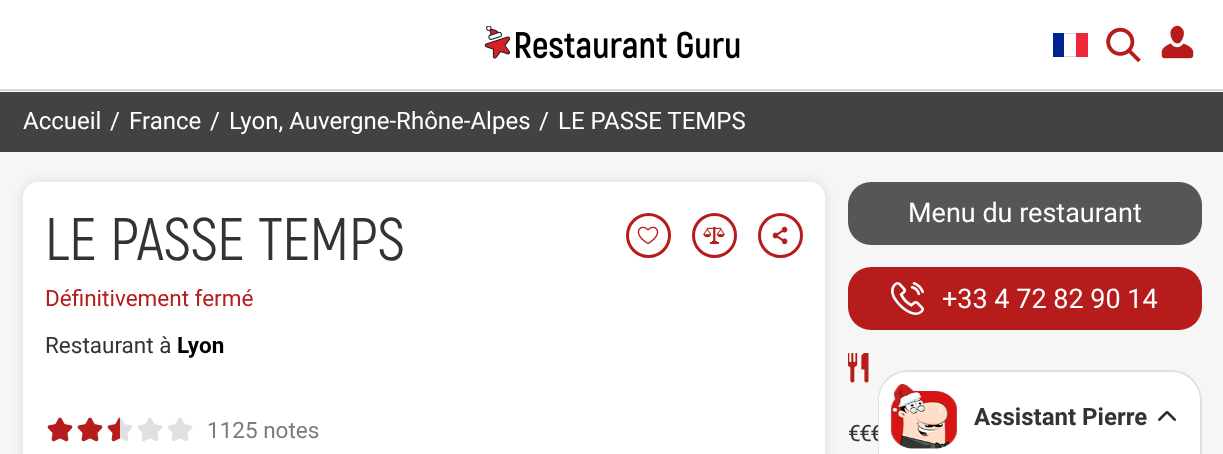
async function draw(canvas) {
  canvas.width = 1223
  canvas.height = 454
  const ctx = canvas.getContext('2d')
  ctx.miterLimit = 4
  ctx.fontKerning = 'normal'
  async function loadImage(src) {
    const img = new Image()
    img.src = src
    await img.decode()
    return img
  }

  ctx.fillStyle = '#f6f6f6'
  ctx.fillRect(0, 0, 1223, 454)
  ctx.fillStyle = '#fff'
  ctx.fillRect(0, 0, 1223, 89)
  ctx.fillStyle = '#d5d8da'
  ctx.fillRect(0, 89, 1223, 2)
  ctx.drawImage(await loadImage('image0.png'), 484, 26, 256, 33)
  ctx.fillStyle = '#ed2939'
  ctx.fillRect(1076, 33, 12, 24)
  ctx.fillStyle = '#002395'
  ctx.fillRect(1053, 33, 11, 24)
  ctx.fillStyle = '#d9d9d9'
  ctx.fillRect(1064, 33, 12, 1)
  ctx.fillRect(1064, 56, 12, 1)
  ctx.drawImage(await loadImage('image1.png'), 1161, 25, 33, 34)
  ctx.drawImage(await loadImage('image2.png'), 1106, 27, 35, 36)
  ctx.fillStyle = '#424242'
  ctx.fillRect(0, 92, 1223, 60)
  ctx.font = '24px Roboto'
  ctx.fillStyle = '#fff'
  ctx.fillText('Accueil', 23, 129)
  ctx.fillText('/', 110, 129)
  ctx.fillText('France', 129, 129)
  ctx.fillText('/', 210, 129)
  ctx.fillText('Lyon, Auvergne-Rhône-Alpes', 229, 129)
  ctx.fillText('/', 539, 129)
  ctx.fillText('LE PASSE TEMPS', 558, 129)
  ctx.fillStyle = '#86878940'
  ctx.filter = 'blur(6px)'
  ctx.beginPath()
  ctx.roundRect(23, 182, 802, 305, 15)
  ctx.fill()
  ctx.filter = 'none'
  ctx.fillStyle = '#fff'
  ctx.beginPath()
  ctx.roundRect(23, 182, 802, 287, 15)
  ctx.fill()
  ctx.font = '60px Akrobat'
  ctx.fillStyle = '#333'
  ctx.fillText('LE PASSE TEMPS', 45, 260)
  ctx.drawImage(await loadImage('image3.png'), 637, 226, 22, 19)
  ctx.beginPath()
  ctx.arc(648.5, 235.5, 21, 0, 2 * Math.PI)
  ctx.strokeStyle = '#b71c1c'
  ctx.lineWidth = 3
  ctx.stroke()
  ctx.drawImage(await loadImage('image4.png'), 703, 226, 22, 18)
  ctx.beginPath()
  ctx.arc(714.5, 235.5, 21, 0, 2 * Math.PI)
  ctx.stroke()
  ctx.drawImage(await loadImage('image5.png'), 772, 226, 16, 19)
  ctx.beginPath()
  ctx.arc(780.5, 235.5, 21, 0, 2 * Math.PI)
  ctx.stroke()
  ctx.font = '22.5px Roboto'
  ctx.fillStyle = '#b71c1c'
  ctx.fillText('Définitivement fermé', 45, 306)
  ctx.fillStyle = '#333'
  ctx.fillText('Restaurant à', 45, 353)
  ctx.font = 'bold 22.5px Roboto'
  ctx.fillStyle = '#000'
  ctx.fillText('Lyon', 177, 353)
  ctx.drawImage(await loadImage('image6.png'), 47, 417, 146, 25)
  ctx.drawImage(await loadImage('image7.png'), 47, 417, 73, 25)
  ctx.font = '22.5px Roboto'
  ctx.fillStyle = '#7b7b7b'
  ctx.fillText('1125 notes', 207, 438)
  ctx.fillStyle = '#565656'
  ctx.beginPath()
  ctx.roundRect(848, 182, 354, 63, 23)
  ctx.fill()
  ctx.font = '27px Roboto'
  ctx.fillStyle = '#fff'
  ctx.fillText('Menu du restaurant', 908, 222)
  ctx.fillStyle = '#b71c1c'
  ctx.beginPath()
  ctx.roundRect(848, 267, 354, 63, 23)
  ctx.fill()
  ctx.drawImage(await loadImage('image8.png'), 891, 282, 33, 33)
  ctx.fillStyle = '#fff'
  ctx.fillText('+33 4 72 82 90 14', 942, 308)
  ctx.drawImage(await loadImage('image9.png'), 848, 353, 21, 30)
  ctx.letterSpacing = '-1.5px'
  ctx.font = '22.5px Roboto'
  ctx.fillStyle = '#333'
  ctx.fillText('€€€', 848, 441)
  ctx.fillStyle = '#fff'
  ctx.beginPath()
  ctx.moveTo(908, 371)
  ctx.lineTo(1172, 371)
  ctx.bezierCurveTo(1188.5, 371, 1202, 384.5, 1202, 401)
  ctx.lineTo(1202, 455)
  ctx.lineTo(878, 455)
  ctx.lineTo(878, 401)
  ctx.bezierCurveTo(878, 384.5, 891.5, 371, 908, 371)
  ctx.closePath()
  ctx.fill()
  ctx.fillStyle = '#e0e0e0'
  ctx.beginPath()
  ctx.moveTo(908, 370)
  ctx.lineTo(1172, 370)
  ctx.bezierCurveTo(1188, 370, 1202, 384, 1202, 400)
  ctx.lineTo(1202, 454)
  ctx.lineTo(878, 454)
  ctx.lineTo(878, 400)
  ctx.bezierCurveTo(878, 384, 891, 370, 908, 370)
  ctx.closePath()
  ctx.moveTo(908, 372)
  ctx.lineTo(1172, 372)
  ctx.bezierCurveTo(1187, 372, 1200, 385, 1200, 400)
  ctx.lineTo(1200, 454)
  ctx.lineTo(879, 454)
  ctx.lineTo(879, 400)
  ctx.bezierCurveTo(879, 385, 892, 372, 908, 372)
  ctx.closePath()
  ctx.fill('evenodd')
  ctx.drawImage(await loadImage('image10.png'), 890, 384, 67, 65)
  ctx.letterSpacing = '0px'
  ctx.font = 'bold 24px Roboto'
  ctx.fillStyle = '#333'
  ctx.fillText('Assistant Pierre', 974, 425)
  ctx.drawImage(await loadImage('image11.png'), 1158, 411, 18, 10)
}

draw(document.querySelector('canvas'))
